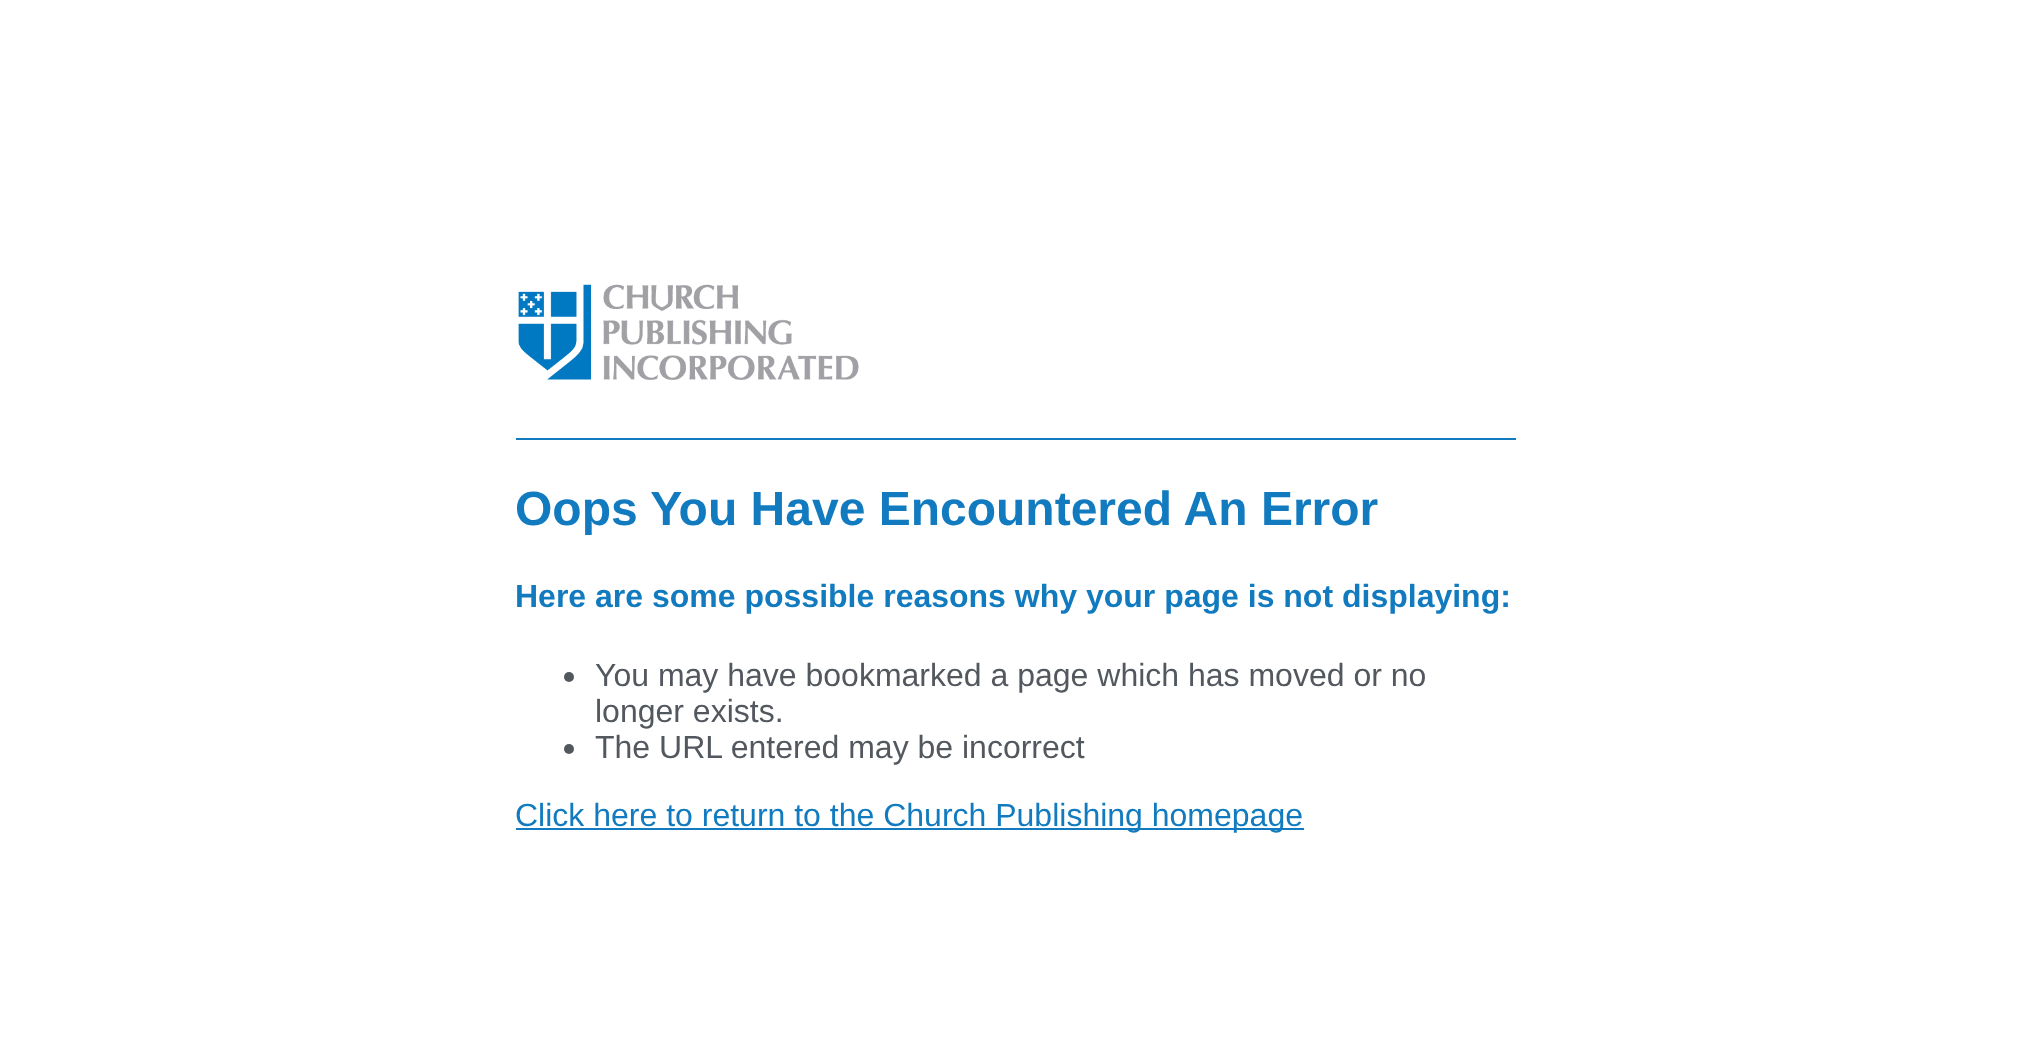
async function draw(canvas) {
  canvas.width = 2029
  canvas.height = 1055
  const ctx = canvas.getContext('2d')
  ctx.miterLimit = 4
  ctx.fontKerning = 'normal'
  async function loadImage(src) {
    const img = new Image()
    img.src = src
    await img.decode()
    return img
  }

  ctx.fillStyle = '#fff'
  ctx.fillRect(0, 0, 2029, 1055)
  ctx.fillStyle = '#127bbf'
  ctx.fillRect(516, 438, 1000, 2)
  ctx.drawImage(await loadImage('image0.png'), 518, 284, 341, 96)
  ctx.font = 'bold 48px Liberation Sans'
  ctx.fillText('Oops You Have Encountered An Error', 515, 525)
  ctx.font = 'bold 32px Liberation Sans'
  ctx.fillText('Here are some possible reasons why your page is not displaying:', 515, 607)
  ctx.fillStyle = '#53585f'
  ctx.beginPath()
  ctx.arc(569, 677, 5, 0, 2 * Math.PI)
  ctx.fill()
  ctx.font = '32px Liberation Sans'
  ctx.fillText('You may have bookmarked a page which has moved or no', 595, 686)
  ctx.fillText('longer exists.', 595, 722)
  ctx.beginPath()
  ctx.arc(569, 749, 5, 0, 2 * Math.PI)
  ctx.fill()
  ctx.fillText('The URL entered may be incorrect', 595, 758)
  ctx.fillStyle = '#127bbf'
  ctx.fillRect(516, 828, 788, 2)
  ctx.fillText('Click here to return to the Church Publishing homepage', 515, 826)
}

draw(document.querySelector('canvas'))
